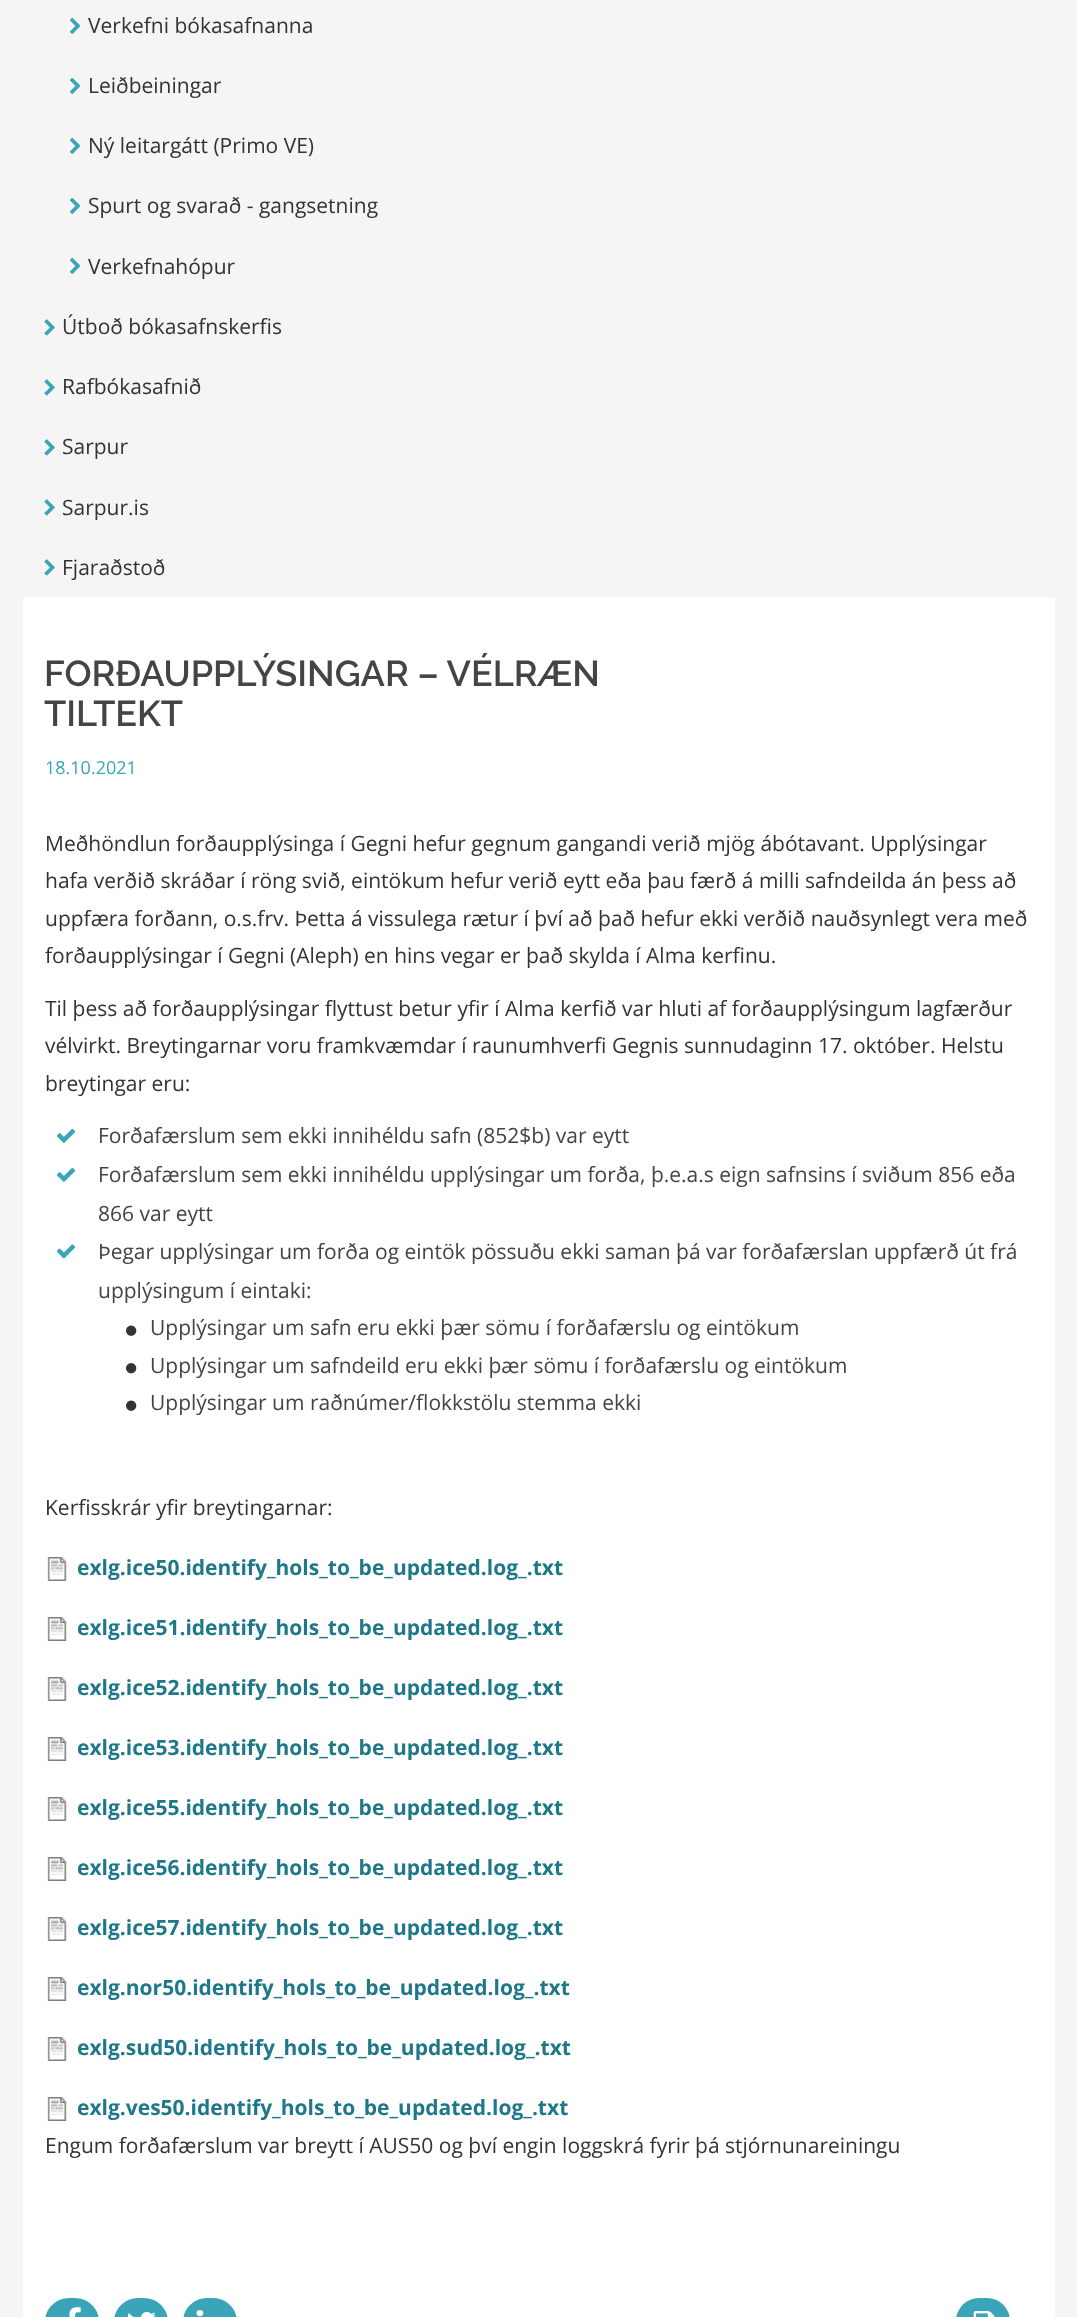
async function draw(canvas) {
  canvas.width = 1077
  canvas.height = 2317
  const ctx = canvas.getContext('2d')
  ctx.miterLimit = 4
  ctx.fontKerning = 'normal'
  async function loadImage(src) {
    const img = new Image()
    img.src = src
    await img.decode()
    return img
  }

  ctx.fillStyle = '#f5f5f5'
  ctx.fillRect(0, 0, 1077, 2317)
  ctx.drawImage(await loadImage('image0.png'), 69, 17, 12, 17)
  ctx.font = '21px Open Sans'
  ctx.fillStyle = '#333'
  ctx.fillText('Verkefni bókasafnanna', 88, 33)
  ctx.drawImage(await loadImage('image0.png'), 69, 77, 12, 17)
  ctx.fillText('Leiðbeiningar', 88, 93)
  ctx.drawImage(await loadImage('image0.png'), 69, 137, 12, 17)
  ctx.fillText('Ný leitargátt (Primo VE)', 88, 153)
  ctx.drawImage(await loadImage('image0.png'), 69, 197, 12, 17)
  ctx.fillText('Spurt og svarað - gangsetning', 88, 213)
  ctx.drawImage(await loadImage('image0.png'), 69, 257, 12, 17)
  ctx.fillText('Verkefnahópur', 88, 274)
  ctx.drawImage(await loadImage('image1.png'), 44, 319, 11, 17)
  ctx.fillText('Útboð bókasafnskerfis', 62, 334)
  ctx.drawImage(await loadImage('image1.png'), 44, 379, 11, 17)
  ctx.fillText('Rafbókasafnið', 62, 394)
  ctx.drawImage(await loadImage('image1.png'), 44, 439, 11, 17)
  ctx.fillText('Sarpur', 62, 454)
  ctx.drawImage(await loadImage('image1.png'), 44, 499, 11, 17)
  ctx.fillText('Sarpur.is', 62, 515)
  ctx.drawImage(await loadImage('image1.png'), 44, 559, 11, 17)
  ctx.fillText('Fjaraðstoð', 62, 575)
  ctx.fillStyle = '#fff'
  ctx.fillRect(23, 597, 1032, 1720)
  ctx.font = '600 36px Raleway'
  ctx.fillStyle = '#444'
  ctx.fillText('FORÐAUPPLÝSINGAR – VÉLRÆN', 44, 686)
  ctx.fillText('TILTEKT', 44, 726)
  ctx.font = '18px Open Sans'
  ctx.fillStyle = '#3aa4b8'
  ctx.fillText('18.10.2021', 45, 774)
  ctx.font = '21px Open Sans'
  ctx.fillStyle = '#333'
  ctx.fillText('Meðhöndlun forðaupplýsinga í Gegni hefur gegnum gangandi verið mjög ábótavant. Upplýsingar', 45, 851)
  ctx.fillText('hafa verðið skráðar í röng svið, eintökum hefur verið eytt eða þau færð á milli safndeilda án þess að', 45, 888)
  ctx.fillText('uppfæra forðann, o.s.frv. Þetta á vissulega rætur í því að það hefur ekki verðið nauðsynlegt vera með', 45, 926)
  ctx.fillText('forðaupplýsingar í Gegni (Aleph) en hins vegar er það skylda í Alma kerfinu.', 45, 963)
  ctx.fillText('Til þess að forðaupplýsingar flyttust betur yfir í Alma kerfið var hluti af forðaupplýsingum lagfærður', 45, 1016)
  ctx.fillText('vélvirkt. Breytingarnar voru framkvæmdar í raunumhverfi Gegnis sunnudaginn 17. október. Helstu', 45, 1053)
  ctx.fillText('breytingar eru:', 45, 1091)
  ctx.drawImage(await loadImage('image2.png'), 56, 1128, 20, 15)
  ctx.fillStyle = '#444'
  ctx.fillText('Forðafærslum sem ekki innihéldu safn (852$b) var eytt', 98, 1143)
  ctx.drawImage(await loadImage('image2.png'), 56, 1167, 20, 15)
  ctx.fillText('Forðafærslum sem ekki innihéldu upplýsingar um forða, þ.e.a.s eign safnsins í sviðum 856 eða', 98, 1182)
  ctx.fillText('866 var eytt', 98, 1221)
  ctx.drawImage(await loadImage('image3.png'), 56, 1244, 20, 15)
  ctx.fillText('Þegar upplýsingar um forða og eintök pössuðu ekki saman þá var forðafærslan uppfærð út frá', 98, 1259)
  ctx.fillText('upplýsingum í eintaki:', 98, 1298)
  ctx.drawImage(await loadImage('image4.png'), 126, 1325, 11, 11)
  ctx.fillText('Upplýsingar um safn eru ekki þær sömu í forðafærslu og eintökum', 150, 1335)
  ctx.drawImage(await loadImage('image5.png'), 126, 1363, 11, 11)
  ctx.fillText('Upplýsingar um safndeild eru ekki þær sömu í forðafærslu og eintökum', 150, 1373)
  ctx.drawImage(await loadImage('image4.png'), 126, 1400, 11, 11)
  ctx.fillText('Upplýsingar um raðnúmer/flokkstölu stemma ekki', 150, 1410)
  ctx.fillStyle = '#333'
  ctx.fillText('Kerfisskrár yfir breytingarnar:', 45, 1515)
  ctx.drawImage(await loadImage('image6.png'), 47, 1557, 20, 24)
  ctx.font = 'bold 21px Open Sans'
  ctx.fillStyle = '#1e7889'
  ctx.fillText('exlg.ice50.identify_hols_to_be_updated.log_.txt', 77, 1575)
  ctx.drawImage(await loadImage('image6.png'), 47, 1617, 20, 24)
  ctx.fillText('exlg.ice51.identify_hols_to_be_updated.log_.txt', 77, 1635)
  ctx.drawImage(await loadImage('image6.png'), 47, 1677, 20, 24)
  ctx.fillText('exlg.ice52.identify_hols_to_be_updated.log_.txt', 77, 1695)
  ctx.drawImage(await loadImage('image6.png'), 47, 1737, 20, 24)
  ctx.fillText('exlg.ice53.identify_hols_to_be_updated.log_.txt', 77, 1755)
  ctx.drawImage(await loadImage('image6.png'), 47, 1797, 20, 24)
  ctx.fillText('exlg.ice55.identify_hols_to_be_updated.log_.txt', 77, 1815)
  ctx.drawImage(await loadImage('image6.png'), 47, 1857, 20, 24)
  ctx.fillText('exlg.ice56.identify_hols_to_be_updated.log_.txt', 77, 1875)
  ctx.drawImage(await loadImage('image6.png'), 47, 1917, 20, 24)
  ctx.fillText('exlg.ice57.identify_hols_to_be_updated.log_.txt', 77, 1935)
  ctx.drawImage(await loadImage('image6.png'), 47, 1977, 20, 24)
  ctx.fillText('exlg.nor50.identify_hols_to_be_updated.log_.txt', 77, 1995)
  ctx.drawImage(await loadImage('image6.png'), 47, 2037, 20, 24)
  ctx.fillText('exlg.sud50.identify_hols_to_be_updated.log_.txt', 77, 2055)
  ctx.drawImage(await loadImage('image6.png'), 47, 2097, 20, 24)
  ctx.fillText('exlg.ves50.identify_hols_to_be_updated.log_.txt', 77, 2115)
  ctx.font = '21px Open Sans'
  ctx.fillStyle = '#333'
  ctx.fillText('Engum forðafærslum var breytt í AUS50 og því engin loggskrá fyrir þá stjórnunareiningu', 45, 2153)
  ctx.fillStyle = '#3aa4b8'
  ctx.beginPath()
  ctx.roundRect(46, 2299, 52, 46, 26)
  ctx.fill()
  ctx.strokeStyle = '#3aa4b8'
  ctx.lineWidth = 2
  ctx.stroke()
  ctx.drawImage(await loadImage('image7.png'), 69, 2307, 12, 10)
  ctx.beginPath()
  ctx.roundRect(115, 2299, 52, 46, 26)
  ctx.fill()
  ctx.stroke()
  ctx.drawImage(await loadImage('image8.png'), 128, 2311, 28, 6)
  ctx.beginPath()
  ctx.roundRect(184, 2299, 52, 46, 26)
  ctx.fill()
  ctx.stroke()
  ctx.drawImage(await loadImage('image9.png'), 196, 2310, 8, 7)
  ctx.beginPath()
  ctx.roundRect(956, 2298, 54, 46, 27)
  ctx.fill()
  ctx.drawImage(await loadImage('image10.png'), 973, 2311, 22, 6)
}

draw(document.querySelector('canvas'))
